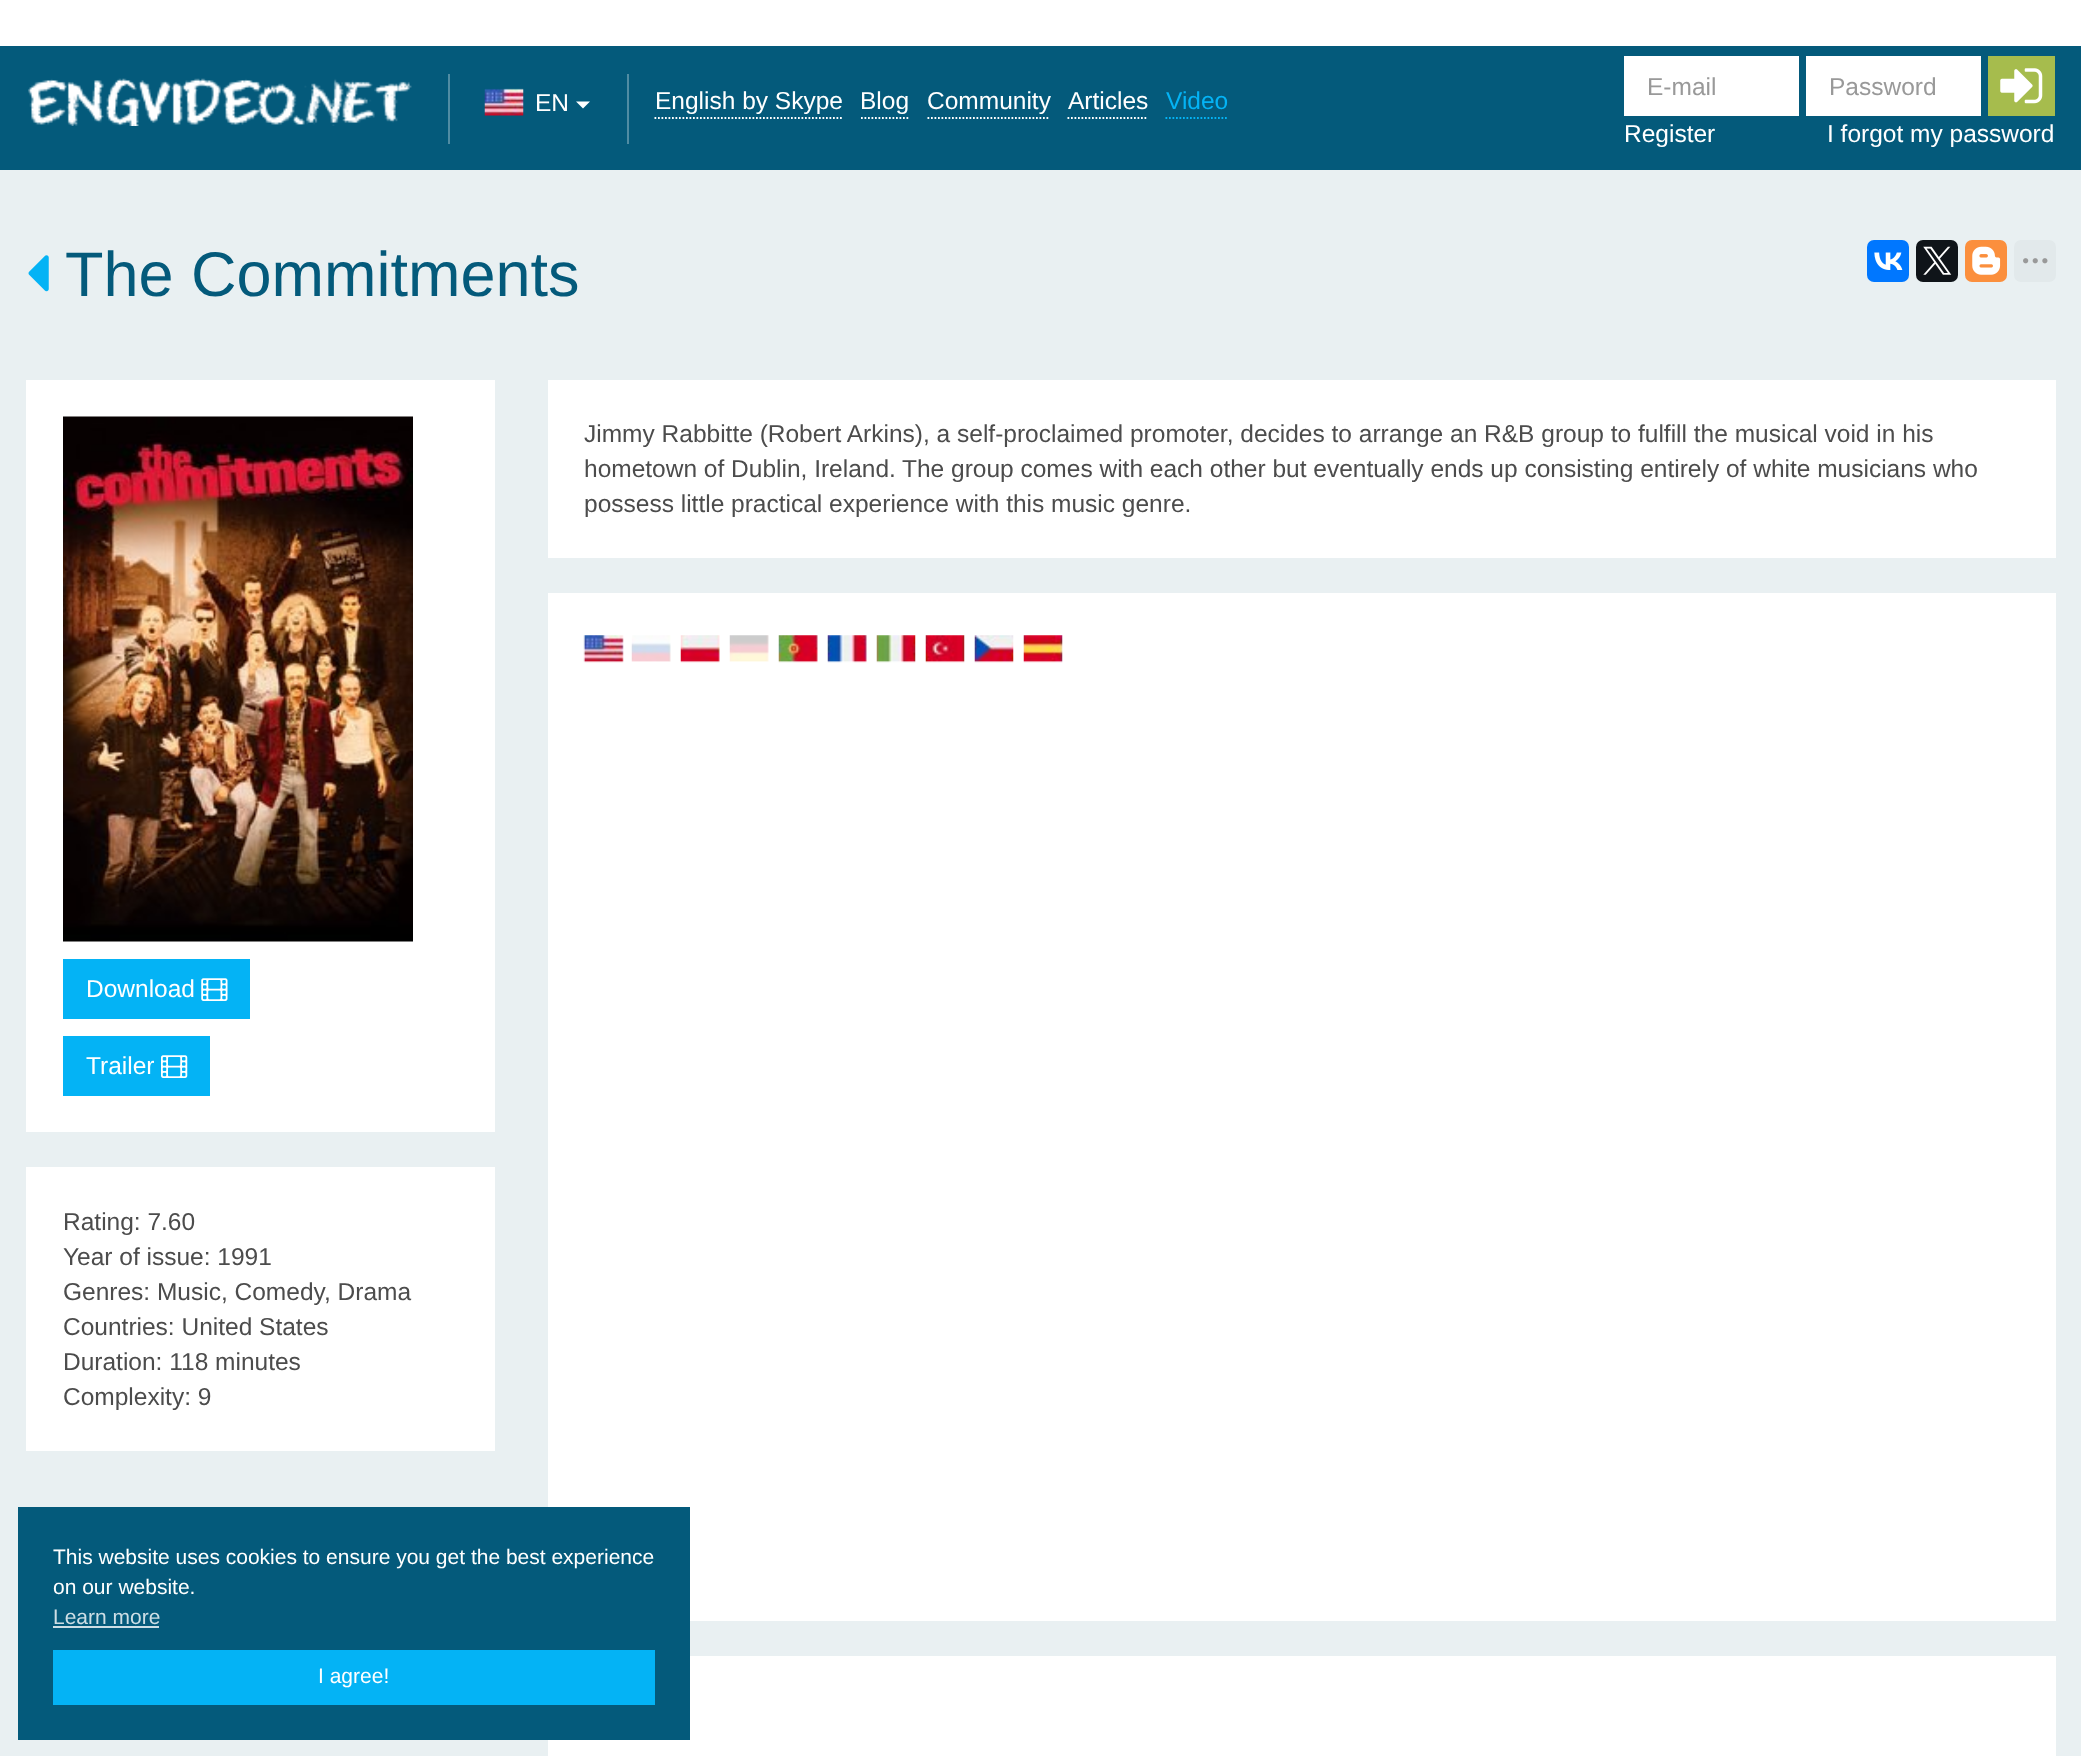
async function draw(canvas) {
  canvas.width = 2081
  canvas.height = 1756
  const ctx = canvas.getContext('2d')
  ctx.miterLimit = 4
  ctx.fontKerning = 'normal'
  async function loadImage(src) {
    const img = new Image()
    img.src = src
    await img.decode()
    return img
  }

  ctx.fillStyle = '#e9f0f2'
  ctx.fillRect(0, 0, 2081, 1756)
  ctx.fillStyle = '#fff'
  ctx.fillRect(0, 0, 2081, 46)
  ctx.fillStyle = '#045a7b'
  ctx.fillRect(0, 46, 2081, 124)
  ctx.drawImage(await loadImage('image0.png'), 28, 78, 384, 48)
  ctx.fillStyle = '#508ca3'
  ctx.fillRect(448, 74, 2, 70)
  ctx.drawImage(await loadImage('image1.png'), 484, 88, 40, 28)
  ctx.font = '24.5px Liberation Sans'
  ctx.fillStyle = '#fff'
  ctx.fillText('EN', 535, 111)
  ctx.beginPath()
  ctx.moveTo(576, 101.5)
  ctx.lineTo(590, 101.5)
  ctx.lineTo(583, 108.5)
  ctx.closePath()
  ctx.fill()
  ctx.fillStyle = '#508ca3'
  ctx.fillRect(627, 74, 2, 70)
  ctx.beginPath()
  ctx.moveTo(654.5, 118)
  ctx.lineTo(843.5, 118)
  ctx.strokeStyle = '#fff'
  ctx.lineWidth = 1.8
  ctx.setLineDash([1.75, 1.75])
  ctx.stroke()
  ctx.fillStyle = '#fff'
  ctx.fillText('English by Skype', 655, 109)
  ctx.beginPath()
  ctx.moveTo(861, 118)
  ctx.lineTo(910, 118)
  ctx.stroke()
  ctx.fillText('Blog', 860, 109)
  ctx.beginPath()
  ctx.moveTo(927.5, 118)
  ctx.lineTo(1050, 118)
  ctx.stroke()
  ctx.fillText('Community', 927, 109)
  ctx.beginPath()
  ctx.moveTo(1067.5, 118)
  ctx.lineTo(1148, 118)
  ctx.stroke()
  ctx.fillText('Articles', 1068, 109)
  ctx.beginPath()
  ctx.moveTo(1165.5, 118)
  ctx.lineTo(1228.5, 118)
  ctx.strokeStyle = '#04b3f5'
  ctx.stroke()
  ctx.fillStyle = '#04b3f5'
  ctx.fillText('Video', 1166, 109)
  ctx.fillStyle = '#fff'
  ctx.fillRect(1624, 56, 175, 60)
  ctx.fillStyle = '#999'
  ctx.fillText('E-mail', 1647, 95)
  ctx.fillStyle = '#fff'
  ctx.fillRect(1806, 56, 175, 60)
  ctx.fillStyle = '#999'
  ctx.fillText('Password', 1829, 95)
  ctx.fillStyle = '#a6bc4d'
  ctx.fillRect(1988, 56, 67, 60)
  ctx.drawImage(await loadImage('image2.png'), 2000, 68, 43, 36)
  ctx.fillStyle = '#fff'
  ctx.fillText('Register', 1624, 142)
  ctx.fillText('I forgot my password', 1827, 142)
  ctx.drawImage(await loadImage('image3.png'), 28, 255, 21, 37)
  ctx.font = '63px Liberation Sans'
  ctx.fillStyle = '#045a7b'
  ctx.fillText('The Commitments', 65, 296)
  ctx.fillStyle = '#07f'
  ctx.beginPath()
  ctx.roundRect(1867, 240, 42, 42, 7)
  ctx.fill()
  ctx.drawImage(await loadImage('image4.png'), 1874, 252, 29, 18)
  ctx.fillStyle = '#0f1419'
  ctx.beginPath()
  ctx.roundRect(1916, 240, 42, 42, 7)
  ctx.fill()
  ctx.drawImage(await loadImage('image5.png'), 1923, 246, 29, 29)
  ctx.fillStyle = '#fb8f3d'
  ctx.beginPath()
  ctx.roundRect(1965, 240, 42, 42, 7)
  ctx.fill()
  ctx.drawImage(await loadImage('image6.png'), 1972, 246, 29, 29)
  ctx.fillStyle = '#e2e9eb'
  ctx.beginPath()
  ctx.roundRect(2014, 240, 42, 42, 7)
  ctx.fill()
  ctx.drawImage(await loadImage('image7.png'), 2023, 258, 25, 6)
  ctx.fillStyle = '#fff'
  ctx.fillRect(548, 380, 1508, 178)
  ctx.font = '24.5px Liberation Sans'
  ctx.fillStyle = '#4c4c4c'
  ctx.fillText('Jimmy Rabbitte (Robert Arkins), a self-proclaimed promoter, decides to arrange an R&B group to fulfill the musical void in his', 584, 442)
  ctx.fillText('hometown of Dublin, Ireland.', 584, 477)
  ctx.fillText('The group comes with each other but eventually ends up consisting entirely of white musicians who', 902, 477)
  ctx.fillText('possess little practical experience with this music genre.', 584, 512)
  ctx.fillStyle = '#fff'
  ctx.fillRect(548, 593, 1508, 1028)
  ctx.drawImage(await loadImage('image8.png'), 583, 635, 41, 28)
  ctx.drawImage(await loadImage('image9.png'), 631, 635, 40, 27)
  ctx.drawImage(await loadImage('image10.png'), 680, 635, 40, 28)
  ctx.drawImage(await loadImage('image11.png'), 729, 635, 40, 27)
  ctx.drawImage(await loadImage('image12.png'), 778, 635, 40, 28)
  ctx.drawImage(await loadImage('image13.png'), 827, 635, 40, 28)
  ctx.drawImage(await loadImage('image14.png'), 876, 635, 40, 28)
  ctx.drawImage(await loadImage('image15.png'), 925, 635, 40, 28)
  ctx.drawImage(await loadImage('image16.png'), 974, 635, 40, 28)
  ctx.drawImage(await loadImage('image17.png'), 1023, 635, 40, 28)
  ctx.fillRect(548, 1656, 1508, 100)
  ctx.fillRect(26, 380, 469, 752)
  ctx.drawImage(await loadImage('image18.png'), 63, 416, 350, 526)
  ctx.fillStyle = '#04b3f5'
  ctx.fillRect(63, 959, 187, 60)
  ctx.fillStyle = '#fff'
  ctx.fillText('Download', 86, 997)
  ctx.drawImage(await loadImage('image19.png'), 201, 978, 27, 23)
  ctx.fillStyle = '#04b3f5'
  ctx.fillRect(63, 1036, 147, 60)
  ctx.fillStyle = '#fff'
  ctx.fillText('Trailer', 86, 1074)
  ctx.drawImage(await loadImage('image20.png'), 161, 1055, 27, 23)
  ctx.fillRect(26, 1167, 469, 284)
  ctx.fillStyle = '#4c4c4c'
  ctx.fillText('Rating: 7.60', 63, 1230)
  ctx.fillText('Year of issue: 1991', 63, 1265)
  ctx.fillText('Genres: Music, Comedy, Drama', 63, 1300)
  ctx.fillText('Countries: United States', 63, 1335)
  ctx.fillText('Duration: 118 minutes', 63, 1370)
  ctx.fillText('Complexity: 9', 63, 1405)
  ctx.fillStyle = '#045a7b'
  ctx.fillRect(18, 1507, 672, 233)
  ctx.font = '21px Liberation Sans'
  ctx.fillStyle = '#fff'
  ctx.fillText('This website uses cookies to ensure you get the best experience', 53, 1564)
  ctx.fillText('on our website.', 53, 1594)
  ctx.fillStyle = '#cddee5'
  ctx.fillText('Learn more', 53, 1624)
  ctx.fillRect(53, 1626, 106, 2)
  ctx.fillStyle = '#04b3f5'
  ctx.fillRect(53, 1650, 602, 55)
  ctx.fillStyle = '#fff'
  ctx.fillText('I agree!', 318, 1683)
}

draw(document.querySelector('canvas'))
